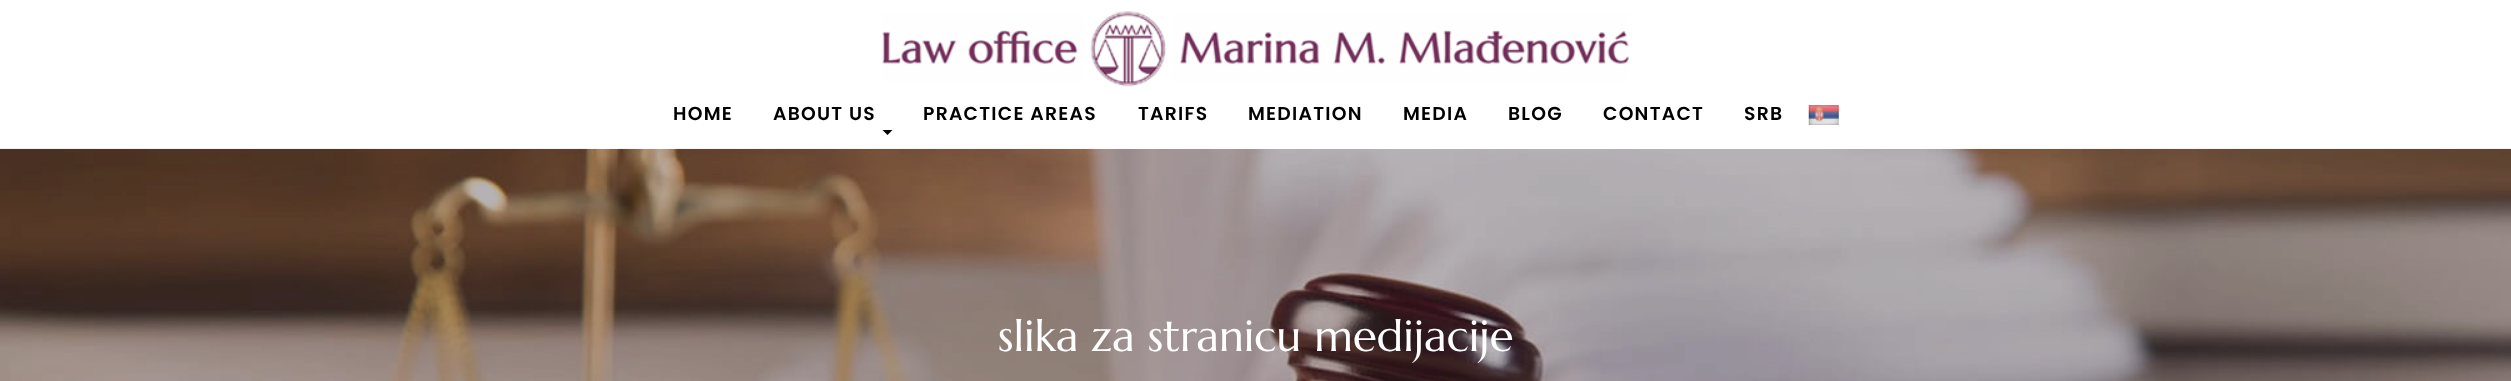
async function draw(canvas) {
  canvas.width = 2511
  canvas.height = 381
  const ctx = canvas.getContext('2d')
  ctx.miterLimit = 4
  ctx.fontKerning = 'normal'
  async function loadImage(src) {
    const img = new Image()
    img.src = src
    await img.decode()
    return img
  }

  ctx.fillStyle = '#fff'
  ctx.fillRect(0, 0, 2511, 381)
  ctx.drawImage(await loadImage('image0.png'), 882, 11, 747, 76)
  ctx.letterSpacing = '1.25px'
  ctx.font = '600 18.75px Poppins'
  ctx.fillStyle = '#000'
  ctx.fillText('HOME', 673, 120)
  ctx.fillText('ABOUT US', 773, 120)
  ctx.beginPath()
  ctx.moveTo(882.5, 130)
  ctx.lineTo(892.5, 130)
  ctx.lineTo(887.5, 135)
  ctx.closePath()
  ctx.fill()
  ctx.fillText('PRACTICE AREAS', 923, 120)
  ctx.fillText('TARIFS', 1138, 120)
  ctx.fillText('MEDIATION', 1248, 120)
  ctx.fillText('MEDIA', 1403, 120)
  ctx.fillText('BLOG', 1508, 120)
  ctx.fillText('CONTACT', 1603, 120)
  ctx.fillText('SRB', 1744, 120)
  ctx.drawImage(await loadImage('image1.png'), 1808, 105, 31, 20)
  ctx.drawImage(await loadImage('image2.png'), 0, 148, 2511, 233)
  ctx.letterSpacing = '0px'
  ctx.font = '43.75px Marcellus'
  ctx.fillStyle = '#fff'
  ctx.fillText('slika za stranicu medijacije', 998, 351)
}

draw(document.querySelector('canvas'))
